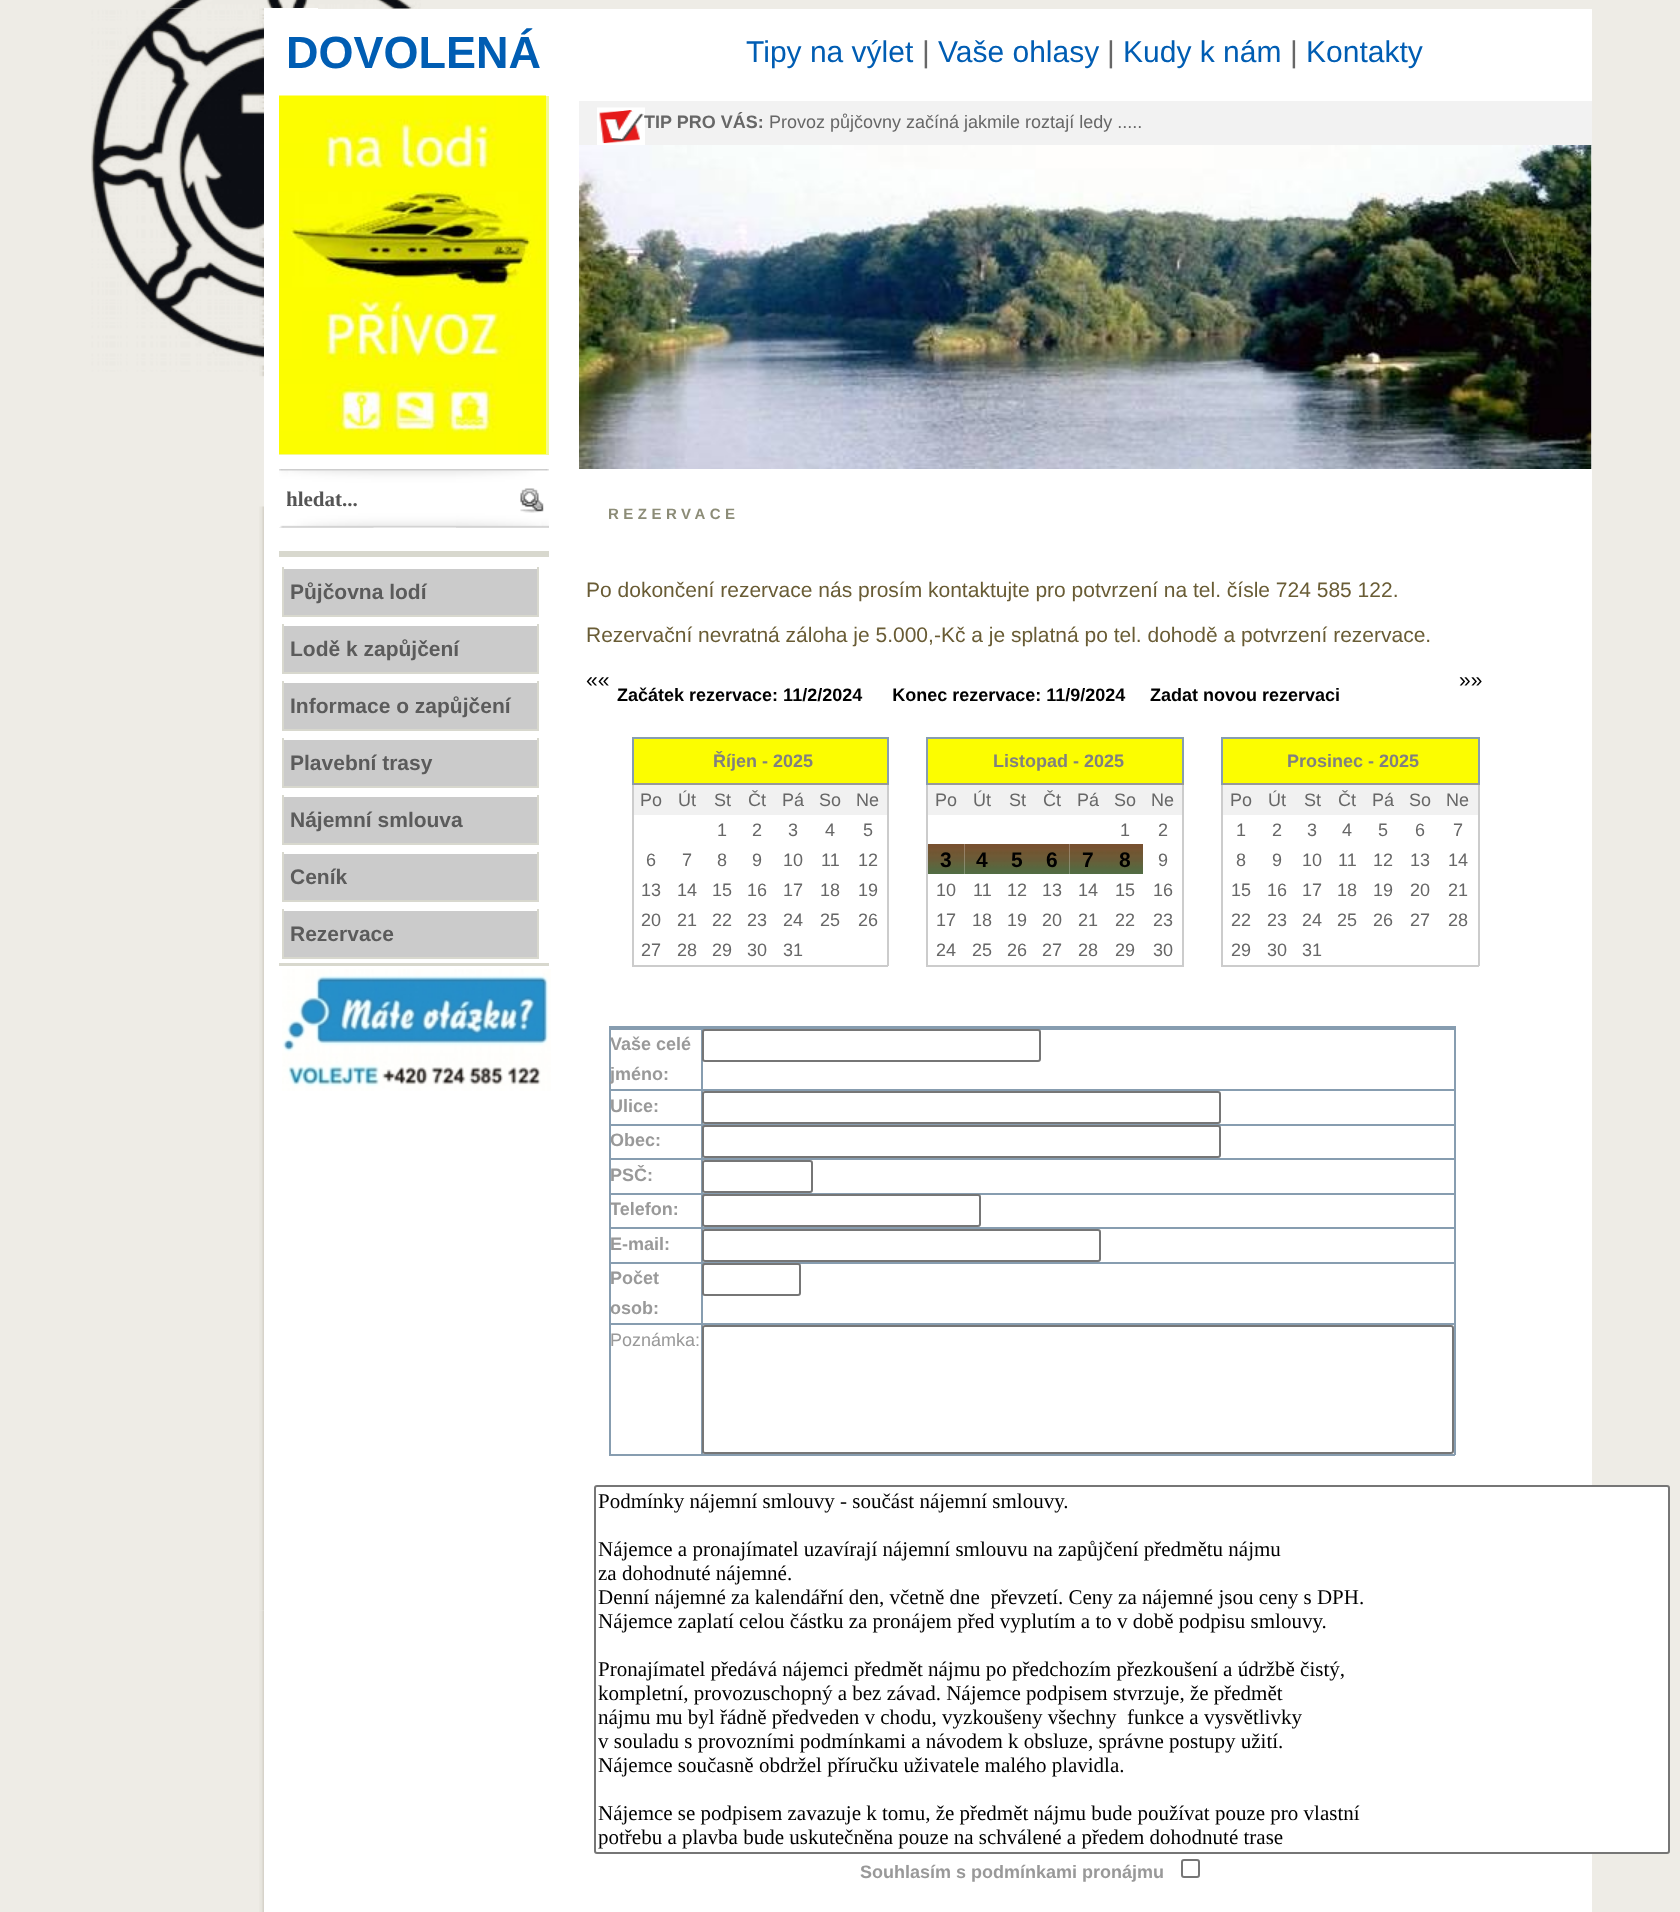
async function draw(canvas) {
  canvas.width = 1680
  canvas.height = 1912
  const ctx = canvas.getContext('2d')
  ctx.miterLimit = 4
  ctx.fontKerning = 'normal'
  async function loadImage(src) {
    const img = new Image()
    img.src = src
    await img.decode()
    return img
  }

  ctx.fillStyle = '#eeece6'
  ctx.fillRect(0, 0, 1680, 1912)
  ctx.drawImage(await loadImage('image0.png'), 165, 0, 256, 9)
  ctx.drawImage(await loadImage('image2.png'), 259, 8, 5, 1603)
  ctx.drawImage(await loadImage('image1.png'), 259, 1610, 5, 302)
  ctx.drawImage(await loadImage('image3.png'), 91, 8, 173, 499)
  ctx.fillStyle = '#fff'
  ctx.fillRect(264, 8, 54, 1904)
  ctx.fillRect(318, 9, 1274, 1903)
  ctx.font = 'bold 45px Liberation Sans'
  ctx.fillStyle = '#005db3'
  ctx.fillText('DOVOLENÁ', 286, 68)
  ctx.fillStyle = '#f4f991'
  ctx.fillRect(279, 96, 270, 359)
  ctx.drawImage(await loadImage('image4.png'), 279, 95, 267, 359)
  ctx.drawImage(await loadImage('image5.png'), 279, 469, 270, 59)
  ctx.drawImage(await loadImage('image6.png'), 279, 469, 95, 59)
  ctx.drawImage(await loadImage('image7.png'), 456, 469, 93, 59)
  ctx.save()
  ctx.beginPath()
  ctx.rect(287, 486, 217, 27)
  ctx.clip()
  ctx.font = 'bold 21px Liberation Serif'
  ctx.fillStyle = '#555'
  ctx.fillText('hledat...', 286, 506)
  ctx.restore()
  ctx.fillStyle = '#d8d8ce'
  ctx.fillRect(279, 551, 270, 6)
  ctx.fillStyle = '#cbcbcb'
  ctx.fillRect(284, 569, 253, 46)
  ctx.fillStyle = '#d8d8ce'
  ctx.fillRect(537, 567, 2, 50)
  ctx.fillRect(282, 615, 257, 2)
  ctx.fillRect(282, 567, 2, 50)
  ctx.font = 'bold 21px Liberation Sans'
  ctx.fillStyle = '#5b5b5b'
  ctx.fillText('Půjčovna lodí', 290, 599)
  ctx.fillStyle = '#cbcbcb'
  ctx.fillRect(284, 626, 253, 46)
  ctx.fillStyle = '#d8d8ce'
  ctx.fillRect(537, 624, 2, 50)
  ctx.fillRect(282, 672, 257, 2)
  ctx.fillRect(282, 624, 2, 50)
  ctx.fillStyle = '#5b5b5b'
  ctx.fillText('Lodě k zapůjčení', 290, 656)
  ctx.fillStyle = '#cbcbcb'
  ctx.fillRect(284, 683, 253, 46)
  ctx.fillStyle = '#d8d8ce'
  ctx.fillRect(537, 681, 2, 50)
  ctx.fillRect(282, 729, 257, 2)
  ctx.fillRect(282, 681, 2, 50)
  ctx.fillStyle = '#5b5b5b'
  ctx.fillText('Informace o zapůjčení', 290, 713)
  ctx.fillStyle = '#cbcbcb'
  ctx.fillRect(284, 740, 253, 46)
  ctx.fillStyle = '#d8d8ce'
  ctx.fillRect(537, 738, 2, 50)
  ctx.fillRect(282, 786, 257, 2)
  ctx.fillRect(282, 738, 2, 50)
  ctx.fillStyle = '#5b5b5b'
  ctx.fillText('Plavební trasy', 290, 770)
  ctx.fillStyle = '#cbcbcb'
  ctx.fillRect(284, 797, 253, 46)
  ctx.fillStyle = '#d8d8ce'
  ctx.fillRect(537, 795, 2, 50)
  ctx.fillRect(282, 843, 257, 2)
  ctx.fillRect(282, 795, 2, 50)
  ctx.fillStyle = '#5b5b5b'
  ctx.fillText('Nájemní smlouva', 290, 827)
  ctx.fillStyle = '#cbcbcb'
  ctx.fillRect(284, 854, 253, 46)
  ctx.fillStyle = '#d8d8ce'
  ctx.fillRect(537, 852, 2, 50)
  ctx.fillRect(282, 900, 257, 2)
  ctx.fillRect(282, 852, 2, 50)
  ctx.fillStyle = '#5b5b5b'
  ctx.fillText('Ceník', 290, 884)
  ctx.fillStyle = '#cbcbcb'
  ctx.fillRect(284, 911, 253, 46)
  ctx.fillStyle = '#d8d8ce'
  ctx.fillRect(537, 909, 2, 50)
  ctx.fillRect(282, 957, 257, 2)
  ctx.fillRect(282, 909, 2, 50)
  ctx.fillStyle = '#5b5b5b'
  ctx.fillText('Rezervace', 290, 941)
  ctx.fillStyle = '#d8d8ce'
  ctx.fillRect(279, 963, 270, 3)
  ctx.drawImage(await loadImage('image8.png'), 282, 969, 269, 122)
  ctx.font = '30px Liberation Sans'
  ctx.fillStyle = '#005db3'
  ctx.fillText('Tipy na výlet', 746, 62)
  ctx.fillStyle = '#676767'
  ctx.fillText('|', 922, 62)
  ctx.fillStyle = '#005db3'
  ctx.fillText('Vaše ohlasy', 938, 62)
  ctx.fillStyle = '#676767'
  ctx.fillText('|', 1107, 62)
  ctx.fillStyle = '#005db3'
  ctx.fillText('Kudy k nám', 1123, 62)
  ctx.fillStyle = '#676767'
  ctx.fillText('|', 1290, 62)
  ctx.fillStyle = '#005db3'
  ctx.fillText('Kontakty', 1306, 62)
  ctx.fillStyle = '#f2f2f2'
  ctx.fillRect(579, 101, 1013, 45)
  ctx.drawImage(await loadImage('image9.png'), 597, 107, 48, 38)
  ctx.font = 'bold 18px Liberation Sans'
  ctx.fillStyle = '#676767'
  ctx.fillText('TIP PRO VÁS:', 644, 128)
  ctx.font = '18px Liberation Sans'
  ctx.fillText('Provoz půjčovny začíná jakmile roztají ledy .....', 769, 128)
  ctx.drawImage(await loadImage('image10.png'), 579, 145, 1013, 324)
  ctx.letterSpacing = '4.5px'
  ctx.font = 'bold 15px Liberation Sans'
  ctx.fillStyle = '#8c8c77'
  ctx.fillText('REZERVACE', 608, 519)
  ctx.letterSpacing = '0px'
  ctx.font = '21px Liberation Sans'
  ctx.fillStyle = '#695c35'
  ctx.fillText('Po dokončení rezervace nás prosím kontaktujte pro potvrzení na tel. čísle 724 585 122.', 586, 597)
  ctx.fillText('Rezervační nevratná záloha je 5.000,-Kč a je splatná po tel. dohodě a potvrzení rezervace.', 586, 642)
  ctx.fillStyle = '#000'
  ctx.fillText('««', 586, 687)
  ctx.fillText('»»', 1459, 687)
  ctx.font = 'bold 18px Liberation Sans'
  ctx.fillText('Začátek rezervace: 11/2/2024      Konec rezervace: 11/9/2024', 617, 701)
  ctx.fillText('Zadat novou rezervaci', 1150, 701)
  ctx.fillStyle = '#ccc'
  ctx.fillRect(887, 785, 2, 181)
  ctx.fillRect(632, 965, 256, 2)
  ctx.fillRect(632, 785, 2, 181)
  ctx.fillStyle = '#fcfd00'
  ctx.fillRect(634, 739, 253, 44)
  ctx.fillStyle = '#879db0'
  ctx.fillRect(632, 737, 256, 2)
  ctx.fillRect(887, 737, 2, 48)
  ctx.fillStyle = '#999'
  ctx.fillRect(632, 783, 256, 2)
  ctx.fillStyle = '#879db0'
  ctx.fillRect(632, 737, 2, 48)
  ctx.fillStyle = '#808080'
  ctx.fillText('Říjen - 2025', 713, 767)
  ctx.fillStyle = '#f1f1f1'
  ctx.fillRect(634, 785, 253, 30)
  ctx.font = '18px Liberation Sans'
  ctx.fillStyle = '#676767'
  ctx.fillText('Po', 640, 806)
  ctx.fillText('Út', 678, 806)
  ctx.fillText('St', 714, 806)
  ctx.fillText('Čt', 748, 806)
  ctx.fillText('Pá', 782, 806)
  ctx.fillText('So', 819, 806)
  ctx.fillText('Ne', 856, 806)
  ctx.fillText('1', 717, 836)
  ctx.fillText('2', 752, 836)
  ctx.fillText('3', 788, 836)
  ctx.fillText('4', 825, 836)
  ctx.fillText('5', 863, 836)
  ctx.fillText('6', 646, 866)
  ctx.fillText('7', 682, 866)
  ctx.fillText('8', 717, 866)
  ctx.fillText('9', 752, 866)
  ctx.fillText('10', 783, 866)
  ctx.fillText('11', 821, 866)
  ctx.fillText('12', 858, 866)
  ctx.fillText('13', 641, 896)
  ctx.fillText('14', 677, 896)
  ctx.fillText('15', 712, 896)
  ctx.fillText('16', 747, 896)
  ctx.fillText('17', 783, 896)
  ctx.fillText('18', 820, 896)
  ctx.fillText('19', 858, 896)
  ctx.fillText('20', 641, 926)
  ctx.fillText('21', 677, 926)
  ctx.fillText('22', 712, 926)
  ctx.fillText('23', 747, 926)
  ctx.fillText('24', 783, 926)
  ctx.fillText('25', 820, 926)
  ctx.fillText('26', 858, 926)
  ctx.fillText('27', 641, 956)
  ctx.fillText('28', 677, 956)
  ctx.fillText('29', 712, 956)
  ctx.fillText('30', 747, 956)
  ctx.fillText('31', 783, 956)
  ctx.fillStyle = '#ccc'
  ctx.fillRect(1182, 785, 2, 181)
  ctx.fillRect(926, 965, 258, 2)
  ctx.fillRect(926, 785, 2, 181)
  ctx.fillStyle = '#fcfd00'
  ctx.fillRect(928, 739, 254, 44)
  ctx.fillStyle = '#879db0'
  ctx.fillRect(926, 737, 258, 2)
  ctx.fillRect(1182, 737, 2, 48)
  ctx.fillStyle = '#999'
  ctx.fillRect(926, 783, 258, 2)
  ctx.fillStyle = '#879db0'
  ctx.fillRect(926, 737, 2, 48)
  ctx.font = 'bold 18px Liberation Sans'
  ctx.fillStyle = '#808080'
  ctx.fillText('Listopad - 2025', 993, 767)
  ctx.fillStyle = '#f1f1f1'
  ctx.fillRect(928, 785, 254, 30)
  ctx.font = '18px Liberation Sans'
  ctx.fillStyle = '#676767'
  ctx.fillText('Po', 935, 806)
  ctx.fillText('Út', 973, 806)
  ctx.fillText('St', 1009, 806)
  ctx.fillText('Čt', 1043, 806)
  ctx.fillText('Pá', 1077, 806)
  ctx.fillText('So', 1114, 806)
  ctx.fillText('Ne', 1151, 806)
  ctx.fillText('1', 1120, 836)
  ctx.fillText('2', 1158, 836)
  ctx.drawImage(await loadImage('image11.png'), 928, 844, 37, 30)
  ctx.font = 'bold 21px Liberation Sans'
  ctx.fillStyle = '#000'
  ctx.fillText('3', 940, 867)
  ctx.drawImage(await loadImage('image12.png'), 964, 844, 35, 30)
  ctx.fillText('4', 976, 867)
  ctx.drawImage(await loadImage('image13.png'), 999, 844, 36, 30)
  ctx.fillText('5', 1011, 867)
  ctx.drawImage(await loadImage('image14.png'), 1035, 844, 35, 30)
  ctx.fillText('6', 1046, 867)
  ctx.drawImage(await loadImage('image15.png'), 1069, 844, 38, 30)
  ctx.fillText('7', 1082, 867)
  ctx.drawImage(await loadImage('image16.png'), 1107, 844, 36, 30)
  ctx.fillText('8', 1119, 867)
  ctx.font = '18px Liberation Sans'
  ctx.fillStyle = '#676767'
  ctx.fillText('9', 1158, 866)
  ctx.fillText('10', 936, 896)
  ctx.fillText('11', 973, 896)
  ctx.fillText('12', 1007, 896)
  ctx.fillText('13', 1042, 896)
  ctx.fillText('14', 1078, 896)
  ctx.fillText('15', 1115, 896)
  ctx.fillText('16', 1153, 896)
  ctx.fillText('17', 936, 926)
  ctx.fillText('18', 972, 926)
  ctx.fillText('19', 1007, 926)
  ctx.fillText('20', 1042, 926)
  ctx.fillText('21', 1078, 926)
  ctx.fillText('22', 1115, 926)
  ctx.fillText('23', 1153, 926)
  ctx.fillText('24', 936, 956)
  ctx.fillText('25', 972, 956)
  ctx.fillText('26', 1007, 956)
  ctx.fillText('27', 1042, 956)
  ctx.fillText('28', 1078, 956)
  ctx.fillText('29', 1115, 956)
  ctx.fillText('30', 1153, 956)
  ctx.fillStyle = '#ccc'
  ctx.fillRect(1478, 785, 2, 181)
  ctx.fillRect(1221, 965, 258, 2)
  ctx.fillRect(1221, 785, 2, 181)
  ctx.fillStyle = '#fcfd00'
  ctx.fillRect(1223, 739, 255, 44)
  ctx.fillStyle = '#879db0'
  ctx.fillRect(1221, 737, 258, 2)
  ctx.fillRect(1478, 737, 2, 48)
  ctx.fillStyle = '#999'
  ctx.fillRect(1221, 783, 258, 2)
  ctx.fillStyle = '#879db0'
  ctx.fillRect(1221, 737, 2, 48)
  ctx.font = 'bold 18px Liberation Sans'
  ctx.fillStyle = '#808080'
  ctx.fillText('Prosinec - 2025', 1287, 767)
  ctx.fillStyle = '#f1f1f1'
  ctx.fillRect(1223, 785, 255, 30)
  ctx.font = '18px Liberation Sans'
  ctx.fillStyle = '#676767'
  ctx.fillText('Po', 1230, 806)
  ctx.fillText('Út', 1268, 806)
  ctx.fillText('St', 1304, 806)
  ctx.fillText('Čt', 1338, 806)
  ctx.fillText('Pá', 1372, 806)
  ctx.fillText('So', 1409, 806)
  ctx.fillText('Ne', 1446, 806)
  ctx.fillText('1', 1236, 836)
  ctx.fillText('2', 1272, 836)
  ctx.fillText('3', 1307, 836)
  ctx.fillText('4', 1342, 836)
  ctx.fillText('5', 1378, 836)
  ctx.fillText('6', 1415, 836)
  ctx.fillText('7', 1453, 836)
  ctx.fillText('8', 1236, 866)
  ctx.fillText('9', 1272, 866)
  ctx.fillText('10', 1302, 866)
  ctx.fillText('11', 1338, 866)
  ctx.fillText('12', 1373, 866)
  ctx.fillText('13', 1410, 866)
  ctx.fillText('14', 1448, 866)
  ctx.fillText('15', 1231, 896)
  ctx.fillText('16', 1267, 896)
  ctx.fillText('17', 1302, 896)
  ctx.fillText('18', 1337, 896)
  ctx.fillText('19', 1373, 896)
  ctx.fillText('20', 1410, 896)
  ctx.fillText('21', 1448, 896)
  ctx.fillText('22', 1231, 926)
  ctx.fillText('23', 1267, 926)
  ctx.fillText('24', 1302, 926)
  ctx.fillText('25', 1337, 926)
  ctx.fillText('26', 1373, 926)
  ctx.fillText('27', 1410, 926)
  ctx.fillText('28', 1448, 926)
  ctx.fillText('29', 1231, 956)
  ctx.fillText('30', 1267, 956)
  ctx.fillText('31', 1302, 956)
  ctx.fillStyle = '#879db0'
  ctx.fillRect(609, 1026, 846, 2)
  ctx.fillRect(701, 1028, 754, 2)
  ctx.fillRect(701, 1089, 754, 2)
  ctx.fillRect(701, 1124, 754, 2)
  ctx.fillRect(701, 1158, 754, 2)
  ctx.fillRect(701, 1193, 754, 2)
  ctx.fillRect(701, 1227, 754, 2)
  ctx.fillRect(701, 1262, 754, 2)
  ctx.fillRect(701, 1323, 754, 2)
  ctx.fillRect(1454, 1323, 2, 132)
  ctx.fillRect(1454, 1262, 2, 63)
  ctx.fillRect(1454, 1227, 2, 36)
  ctx.fillRect(1454, 1193, 2, 36)
  ctx.fillRect(1454, 1158, 2, 36)
  ctx.fillRect(1454, 1124, 2, 36)
  ctx.fillRect(1454, 1089, 2, 36)
  ctx.fillRect(1454, 1028, 2, 63)
  ctx.fillRect(1455, 1026, 1, 3)
  ctx.fillRect(701, 1454, 754, 2)
  ctx.fillRect(701, 1323, 2, 132)
  ctx.fillRect(609, 1323, 93, 2)
  ctx.fillRect(701, 1262, 2, 63)
  ctx.fillRect(609, 1262, 93, 2)
  ctx.fillRect(701, 1227, 2, 36)
  ctx.fillRect(609, 1227, 93, 2)
  ctx.fillRect(701, 1193, 2, 36)
  ctx.fillRect(609, 1193, 93, 2)
  ctx.fillRect(701, 1158, 2, 36)
  ctx.fillRect(609, 1158, 93, 2)
  ctx.fillRect(701, 1124, 2, 36)
  ctx.fillRect(609, 1124, 93, 2)
  ctx.fillRect(701, 1089, 2, 36)
  ctx.fillRect(609, 1089, 93, 2)
  ctx.fillRect(701, 1028, 2, 63)
  ctx.fillRect(609, 1028, 93, 2)
  ctx.fillRect(609, 1454, 93, 2)
  ctx.fillRect(609, 1323, 2, 132)
  ctx.fillRect(609, 1262, 2, 63)
  ctx.fillRect(609, 1227, 2, 36)
  ctx.fillRect(609, 1193, 2, 36)
  ctx.fillRect(609, 1158, 2, 36)
  ctx.fillRect(609, 1124, 2, 36)
  ctx.fillRect(609, 1089, 2, 36)
  ctx.fillRect(609, 1028, 2, 63)
  ctx.font = 'bold 18px Liberation Sans'
  ctx.fillStyle = '#999'
  ctx.fillText('Vaše celé', 610, 1050)
  ctx.fillText('jméno:', 610, 1080)
  ctx.fillStyle = '#fff'
  ctx.beginPath()
  ctx.roundRect(703, 1030, 337, 31, 2)
  ctx.fill()
  ctx.strokeStyle = '#767676'
  ctx.lineWidth = 2
  ctx.stroke()
  ctx.fillStyle = '#999'
  ctx.fillText('Ulice:', 610, 1112)
  ctx.fillStyle = '#fff'
  ctx.beginPath()
  ctx.roundRect(703, 1092, 517, 31, 2)
  ctx.fill()
  ctx.stroke()
  ctx.fillStyle = '#999'
  ctx.fillText('Obec:', 610, 1146)
  ctx.fillStyle = '#fff'
  ctx.beginPath()
  ctx.roundRect(703, 1126, 517, 31, 2)
  ctx.fill()
  ctx.stroke()
  ctx.fillStyle = '#999'
  ctx.fillText('PSČ:', 610, 1181)
  ctx.fillStyle = '#fff'
  ctx.beginPath()
  ctx.roundRect(703, 1161, 109, 31, 2)
  ctx.fill()
  ctx.stroke()
  ctx.fillStyle = '#999'
  ctx.fillText('Telefon:', 610, 1215)
  ctx.fillStyle = '#fff'
  ctx.beginPath()
  ctx.roundRect(703, 1195, 277, 31, 2)
  ctx.fill()
  ctx.stroke()
  ctx.fillStyle = '#999'
  ctx.fillText('E-mail:', 610, 1250)
  ctx.fillStyle = '#fff'
  ctx.beginPath()
  ctx.roundRect(703, 1230, 397, 31, 2)
  ctx.fill()
  ctx.stroke()
  ctx.fillStyle = '#999'
  ctx.fillText('Počet', 610, 1284)
  ctx.fillText('osob:', 610, 1314)
  ctx.fillStyle = '#fff'
  ctx.beginPath()
  ctx.roundRect(703, 1264, 97, 31, 2)
  ctx.fill()
  ctx.stroke()
  ctx.font = '18px Liberation Sans'
  ctx.fillStyle = '#999'
  ctx.fillText('Poznámka:', 610, 1346)
  ctx.fillStyle = '#fff'
  ctx.beginPath()
  ctx.roundRect(703, 1326, 750, 127, 2)
  ctx.fill()
  ctx.stroke()
  ctx.beginPath()
  ctx.roundRect(595, 1486, 1074, 367, 2)
  ctx.fill()
  ctx.stroke()
  ctx.font = '21px Liberation Serif'
  ctx.fillStyle = '#000'
  ctx.fillText('Podmínky nájemní smlouvy - součást nájemní smlouvy.', 598, 1508)
  ctx.fillText('Nájemce a pronajímatel uzavírají nájemní smlouvu na zapůjčení předmětu nájmu', 598, 1556)
  ctx.fillText('za dohodnuté nájemné.', 598, 1580)
  ctx.fillText('Denní nájemné za kalendářní den, včetně dne  převzetí. Ceny za nájemné jsou ceny s DPH.', 598, 1604)
  ctx.fillText('Nájemce zaplatí celou částku za pronájem před vyplutím a to v době podpisu smlouvy.', 598, 1628)
  ctx.fillText('Pronajímatel předává nájemci předmět nájmu po předchozím přezkoušení a údržbě čistý,', 598, 1676)
  ctx.fillText('kompletní, provozuschopný a bez závad. Nájemce podpisem stvrzuje, že předmět', 598, 1700)
  ctx.fillText('nájmu mu byl řádně předveden v chodu, vyzkoušeny všechny  funkce a vysvětlivky', 598, 1724)
  ctx.fillText('v souladu s provozními podmínkami a návodem k obsluze, správne postupy užití.', 598, 1748)
  ctx.fillText('Nájemce současně obdržel příručku uživatele malého plavidla.', 598, 1772)
  ctx.fillText('Nájemce se podpisem zavazuje k tomu, že předmět nájmu bude používat pouze pro vlastní', 598, 1820)
  ctx.fillText('potřebu a plavba bude uskutečněna pouze na schválené a předem dohodnuté trase', 598, 1844)
  ctx.font = 'bold 18px Liberation Sans'
  ctx.fillStyle = '#999'
  ctx.fillText('Souhlasím s podmínkami pronájmu', 860, 1878)
  ctx.beginPath()
  ctx.roundRect(1182, 1860, 17, 17, 2)
  ctx.stroke()
}

draw(document.querySelector('canvas'))
